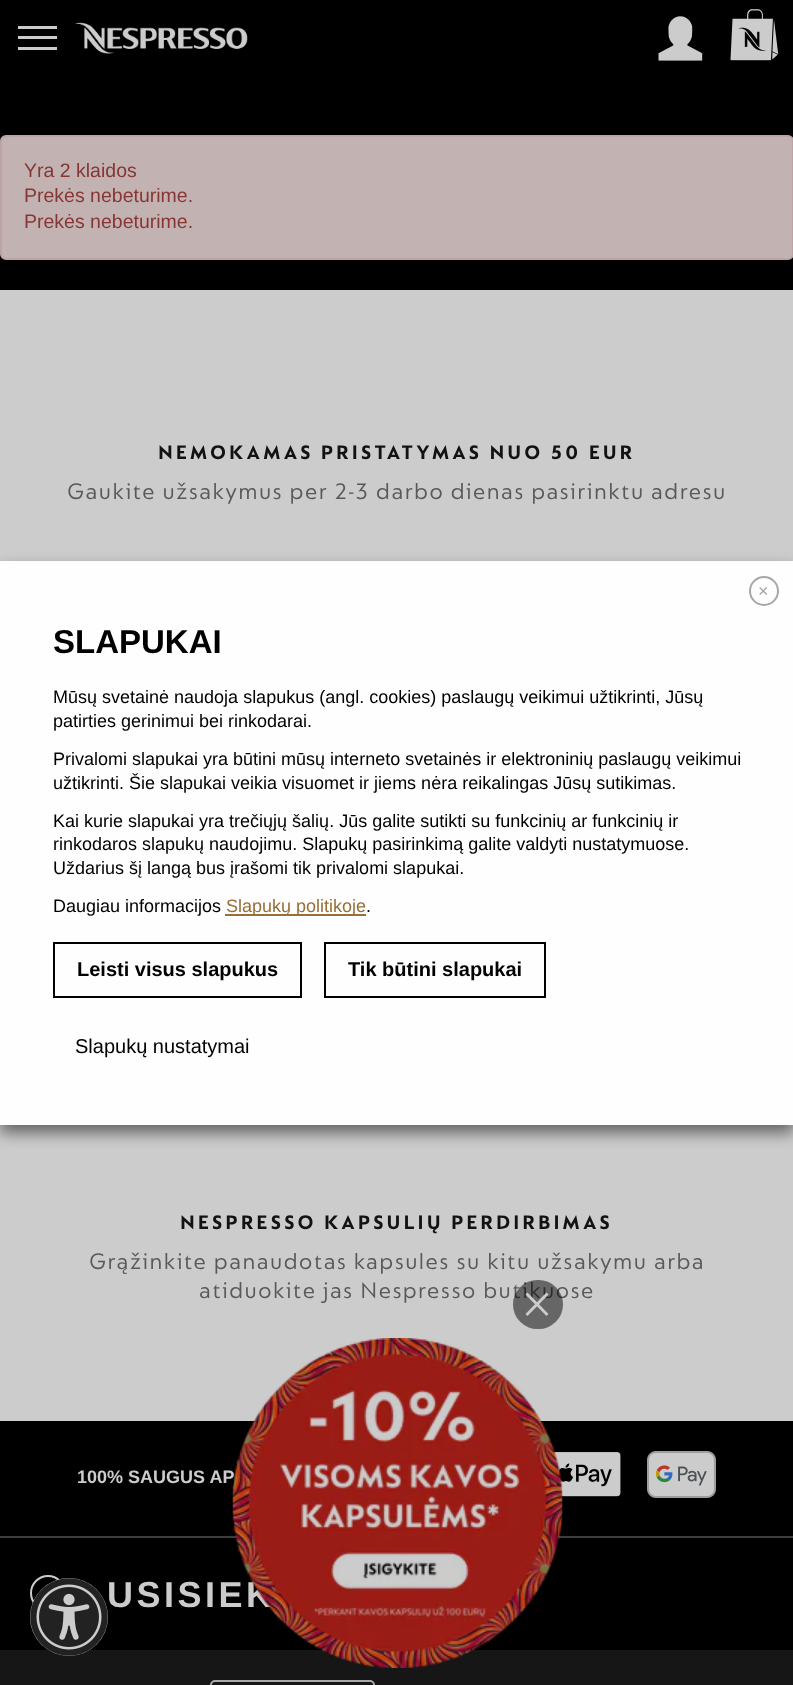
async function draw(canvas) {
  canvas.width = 793
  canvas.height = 1685
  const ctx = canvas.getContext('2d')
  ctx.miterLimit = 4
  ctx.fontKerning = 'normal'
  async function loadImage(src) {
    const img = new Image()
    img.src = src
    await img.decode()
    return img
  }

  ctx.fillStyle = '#000'
  ctx.fillRect(0, 0, 793, 1685)
  ctx.fillStyle = '#ccc'
  ctx.fillRect(18, 26, 39, 3)
  ctx.fillRect(18, 36, 39, 3)
  ctx.fillRect(18, 47, 39, 3)
  ctx.drawImage(await loadImage('image0.png'), 75, 22, 173, 32)
  ctx.drawImage(await loadImage('image1.png'), 658, 16, 45, 45)
  ctx.drawImage(await loadImage('image2.png'), 730, 9, 49, 52)
  ctx.fillStyle = '#c2b2b2'
  ctx.beginPath()
  ctx.roundRect(1, 136, 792, 123, 5)
  ctx.fill()
  ctx.strokeStyle = '#bca3a7'
  ctx.lineWidth = 2
  ctx.stroke()
  ctx.font = '19.5px Liberation Sans'
  ctx.fillStyle = '#873635'
  ctx.fillText('Yra 2 klaidos', 24, 177)
  ctx.fillText('Prekės nebeturime.', 24, 202)
  ctx.fillText('Prekės nebeturime.', 24, 228)
  ctx.fillStyle = '#ccc'
  ctx.fillRect(0, 290, 793, 1131)
  ctx.letterSpacing = '3px'
  ctx.font = 'bold 21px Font'
  ctx.fillStyle = '#121215'
  ctx.fillText('NEMOKAMAS PRISTATYMAS NUO 50 EUR', 158, 459)
  ctx.letterSpacing = '1.5px'
  ctx.font = '24px Font'
  ctx.fillStyle = '#59595a'
  ctx.fillText('Gaukite užsakymus per 2-3 darbo dienas pasirinktu adresu', 67, 499)
  ctx.letterSpacing = '3px'
  ctx.font = 'bold 21px Font'
  ctx.fillStyle = '#121215'
  ctx.fillText('NESPRESSO KAPSULIŲ PERDIRBIMAS', 180, 1229)
  ctx.letterSpacing = '1.5px'
  ctx.font = '24px Font'
  ctx.fillStyle = '#59595a'
  ctx.fillText('Grąžinkite panaudotas kapsules su kitu užsakymu arba', 89, 1269)
  ctx.fillText('atiduokite jas Nespresso butikuose', 199, 1298)
  ctx.fillStyle = '#3e3e3e'
  ctx.fillRect(0, 1536, 793, 2)
  ctx.letterSpacing = '0px'
  ctx.font = 'bold 18px Liberation Sans'
  ctx.fillStyle = '#ccc'
  ctx.fillText('100% SAUGUS AP', 77, 1483)
  ctx.drawImage(await loadImage('image3.png'), 550, 1452, 71, 45)
  ctx.drawImage(await loadImage('image4.png'), 647, 1451, 69, 47)
  ctx.beginPath()
  ctx.arc(48, 1593, 17, 0, 2 * Math.PI)
  ctx.strokeStyle = '#ccc'
  ctx.stroke()
  ctx.letterSpacing = '3.5px'
  ctx.font = 'bold 36px Liberation Sans'
  ctx.fillText('USISIEK', 107, 1607)
  ctx.fillStyle = '#161616'
  ctx.fillRect(0, 1650, 793, 35)
  ctx.beginPath()
  ctx.roundRect(211, 1681, 163, 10, 4)
  ctx.strokeStyle = '#aaa'
  ctx.stroke()
  ctx.fillStyle = '#00000080'
  ctx.filter = 'blur(7.5px)'
  ctx.beginPath()
  ctx.rect(0, 569, 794, 564)
  ctx.fill()
  ctx.filter = 'none'
  ctx.fillStyle = '#fefefe'
  ctx.fillRect(0, 561, 793, 564)
  ctx.beginPath()
  ctx.arc(764, 591, 14, 0, 2 * Math.PI)
  ctx.strokeStyle = '#a7a7a7'
  ctx.stroke()
  ctx.letterSpacing = '0px'
  ctx.font = '18px Liberation Sans'
  ctx.fillStyle = '#a7a7a7'
  ctx.fillText('×', 758, 597)
  ctx.font = 'bold 33px Liberation Sans'
  ctx.fillStyle = '#000'
  ctx.fillText('SLAPUKAI', 53, 653)
  ctx.font = '18px Liberation Sans'
  ctx.fillText('Mūsų svetainė naudoja slapukus (angl. cookies) paslaugų veikimui užtikrinti, Jūsų', 53, 703)
  ctx.fillText('patirties gerinimui bei rinkodarai.', 53, 727)
  ctx.fillText('Privalomi slapukai yra būtini mūsų interneto svetainės ir elektroninių paslaugų veikimui', 53, 765)
  ctx.fillText('užtikrinti. Šie slapukai veikia visuomet ir jiems nėra reikalingas Jūsų sutikimas.', 53, 789)
  ctx.fillText('Kai kurie slapukai yra trečiųjų šalių. Jūs galite sutikti su funkcinių ar funkcinių ir', 53, 827)
  ctx.fillText('rinkodaros slapukų naudojimu. Slapukų pasirinkimą galite valdyti nustatymuose.', 53, 850)
  ctx.fillText('Uždarius šį langą bus įrašomi tik privalomi slapukai.', 53, 874)
  ctx.fillText('Daugiau informacijos', 53, 912)
  ctx.fillStyle = '#986f38'
  ctx.fillRect(225, 914, 141, 2)
  ctx.fillText('Slapukų politikoje', 226, 912)
  ctx.fillStyle = '#000'
  ctx.fillText('.', 366, 912)
  ctx.strokeStyle = '#000'
  ctx.strokeRect(54, 943, 247, 54)
  ctx.font = 'bold 20px Liberation Sans'
  ctx.fillText('Leisti visus slapukus', 77, 976)
  ctx.strokeRect(325, 943, 220, 54)
  ctx.fillText('Tik būtini slapukai', 348, 976)
  ctx.font = '20px Liberation Sans'
  ctx.fillText('Slapukų nustatymai', 75, 1053)
  ctx.fillStyle = '#ccc'
  ctx.beginPath()
  ctx.arc(69, 1617, 39, 0, 2 * Math.PI)
  ctx.fill()
  ctx.drawImage(await loadImage('image5.png'), 30, 1578, 78, 78)
  ctx.fillStyle = '#00000080'
  ctx.beginPath()
  ctx.roundRect(513, 1280, 50, 49, 24.5)
  ctx.fill()
  ctx.fillStyle = '#ccc'
  ctx.beginPath()
  ctx.moveTo(527.5, 1292.5)
  ctx.lineTo(548.5, 1314)
  ctx.lineTo(546.5, 1316)
  ctx.lineTo(525.5, 1294.5)
  ctx.closePath()
  ctx.fill()
  ctx.beginPath()
  ctx.moveTo(525.5, 1314)
  ctx.lineTo(546.5, 1292.5)
  ctx.lineTo(548.5, 1294.5)
  ctx.lineTo(527.5, 1316)
  ctx.closePath()
  ctx.fill()
  ctx.drawImage(await loadImage('image6.png'), 232, 1338, 331, 330)
}

draw(document.querySelector('canvas'))
